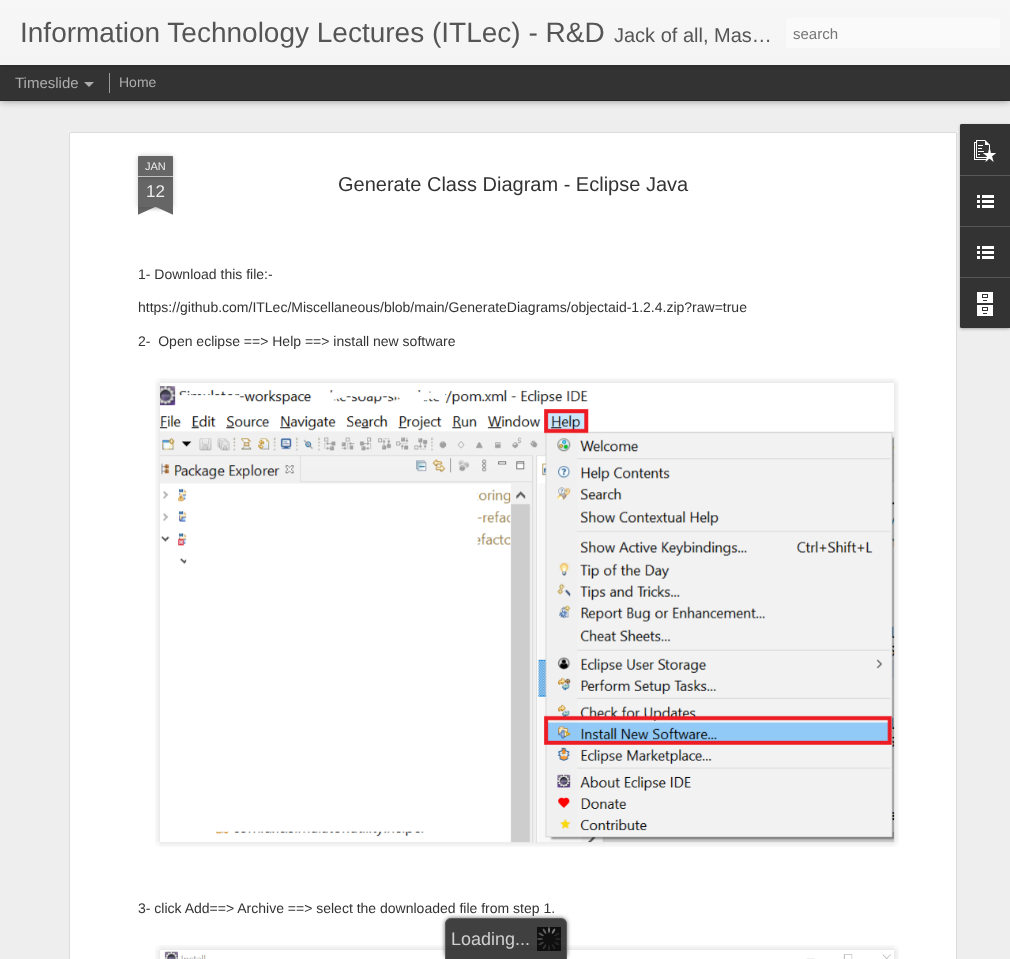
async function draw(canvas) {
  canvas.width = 1010
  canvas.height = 959
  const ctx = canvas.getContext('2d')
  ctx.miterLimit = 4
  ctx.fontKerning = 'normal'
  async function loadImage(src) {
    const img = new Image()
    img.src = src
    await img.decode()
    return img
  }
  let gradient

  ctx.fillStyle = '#333'
  ctx.fillRect(0, 0, 1010, 959)
  ctx.fillStyle = '#eee'
  ctx.fillRect(0, 101, 1010, 858)
  ctx.fillStyle = '#00000080'
  ctx.filter = 'blur(4px)'
  ctx.beginPath()
  ctx.rect(0, 65, 1010, 35)
  ctx.fill()
  ctx.filter = 'none'
  ctx.fillStyle = '#333'
  ctx.fillRect(0, 65, 1010, 35)
  ctx.fillStyle = '#999'
  ctx.fillRect(109, 73, 1, 20)
  ctx.fillStyle = '#0000004d'
  ctx.filter = 'blur(2.5px)'
  ctx.beginPath()
  ctx.rect(0, 0, 1010, 65)
  ctx.fill()
  ctx.filter = 'none'
  gradient = ctx.createLinearGradient(0, 0, 0, 65)
  gradient.addColorStop(0, '#f7f7f7')
  gradient.addColorStop(1, '#f4f4f4')
  ctx.fillStyle = gradient
  ctx.fillRect(0, 0, 1010, 65)
  ctx.font = '28px Liberation Sans'
  ctx.fillStyle = '#555'
  ctx.fillText('Information Technology Lectures (ITLec) - R&D', 20, 42)
  ctx.font = '20px Liberation Sans'
  ctx.fillText('Jack of all, Mas…', 614, 42)
  ctx.fillStyle = '#fafafa'
  ctx.beginPath()
  ctx.roundRect(786, 18, 214, 30, 3)
  ctx.fill()
  ctx.font = '15px Liberation Sans'
  ctx.fillStyle = '#757575'
  ctx.fillText('search', 793, 39)
  ctx.fillStyle = '#adadad'
  ctx.fillText('Timeslide', 15, 88)
  ctx.beginPath()
  ctx.moveTo(84, 82)
  ctx.lineTo(94, 82)
  ctx.lineTo(89, 87)
  ctx.closePath()
  ctx.fill()
  ctx.font = '14px Liberation Sans'
  ctx.fillText('Home', 119, 87)
  ctx.fillStyle = '#fff'
  ctx.fillRect(68, 131, 890, 828)
  ctx.drawImage(await loadImage('image0.png'), 68, 131, 890, 828)
  ctx.fillStyle = '#00000033'
  ctx.filter = 'blur(2.5px)'
  ctx.beginPath()
  ctx.rect(138, 177, 35, 30)
  ctx.fill()
  ctx.filter = 'none'
  ctx.fillStyle = '#666'
  ctx.fillRect(138, 177, 35, 30)
  ctx.fillStyle = '#00000033'
  ctx.filter = 'blur(2.5px)'
  ctx.beginPath()
  ctx.roundRect(138, 156, 35, 21, 1)
  ctx.fill()
  ctx.filter = 'none'
  ctx.fillStyle = '#666'
  ctx.beginPath()
  ctx.roundRect(138, 156, 35, 21, [1, 1, 0, 0])
  ctx.fill()
  ctx.fillStyle = '#c2c2c2'
  ctx.fillRect(138, 176, 35, 1)
  ctx.font = '11px Liberation Sans'
  ctx.fillStyle = '#eee'
  ctx.fillText('JAN', 145, 170)
  ctx.font = '17px Liberation Sans'
  ctx.fillText('12', 146, 197)
  ctx.save()
  ctx.beginPath()
  ctx.rect(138, 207, 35, 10)
  ctx.clip()
  ctx.fillStyle = '#00000033'
  ctx.filter = 'blur(2.5px)'
  ctx.beginPath()
  ctx.rect(129, 197, 50, 10)
  ctx.fill()
  ctx.filter = 'none'
  ctx.restore()
  ctx.save()
  ctx.beginPath()
  ctx.rect(138, 207, 35, 10)
  ctx.clip()
  ctx.fillStyle = '#666'
  ctx.beginPath()
  ctx.moveTo(129, 208)
  ctx.lineTo(175, 187)
  ctx.lineTo(179, 196)
  ctx.lineTo(133, 217)
  ctx.closePath()
  ctx.fill()
  ctx.restore()
  ctx.save()
  ctx.beginPath()
  ctx.rect(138, 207, 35, 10)
  ctx.clip()
  ctx.fillStyle = '#00000033'
  ctx.filter = 'blur(2.5px)'
  ctx.beginPath()
  ctx.rect(132, 197, 50, 10)
  ctx.fill()
  ctx.filter = 'none'
  ctx.restore()
  ctx.save()
  ctx.beginPath()
  ctx.rect(138, 207, 35, 10)
  ctx.clip()
  ctx.fillStyle = '#666'
  ctx.beginPath()
  ctx.moveTo(136, 187)
  ctx.lineTo(182, 208)
  ctx.lineTo(178, 217)
  ctx.lineTo(132, 196)
  ctx.closePath()
  ctx.fill()
  ctx.restore()
  ctx.font = '20px Liberation Sans'
  ctx.fillStyle = '#333'
  ctx.fillText('Generate Class Diagram - Eclipse Java', 338, 191)
  ctx.font = '14px Liberation Sans'
  ctx.fillText('1- Download this file:-', 138, 279)
  ctx.fillText('https://github.com/ITLec/Miscellaneous/blob/main/GenerateDiagrams/objectaid-1.2.4.zip?raw=true', 138, 312)
  ctx.fillText('2-  Open eclipse ==> Help ==> install new software', 138, 346)
  ctx.drawImage(await loadImage('image1.png'), 155, 378, 744, 469)
  ctx.drawImage(await loadImage('image2.png'), 160, 386, 735, 457)
  ctx.fillText('3- click Add==> Archive ==> select the downloaded file from step 1.', 138, 913)
  ctx.drawImage(await loadImage('image3.png'), 155, 945, 744, 14)
  ctx.drawImage(await loadImage('image4.png'), 164, 952, 727, 7)
  ctx.fillStyle = '#0000004d'
  ctx.filter = 'blur(1.5px)'
  ctx.beginPath()
  ctx.roundRect(960, 125, 50, 204, 2)
  ctx.fill()
  ctx.filter = 'none'
  ctx.fillStyle = '#333'
  ctx.beginPath()
  ctx.roundRect(960, 124, 50, 204, [2, 0, 0, 2])
  ctx.fill()
  ctx.beginPath()
  ctx.roundRect(960, 124, 50, 51, [2, 0, 0, 0])
  ctx.fill()
  ctx.drawImage(await loadImage('image5.png'), 974, 140, 22, 22)
  ctx.fillStyle = '#585858'
  ctx.fillRect(960, 175, 50, 1)
  ctx.drawImage(await loadImage('image6.png'), 977, 195, 17, 13)
  ctx.fillRect(960, 226, 50, 1)
  ctx.drawImage(await loadImage('image6.png'), 977, 246, 17, 13)
  ctx.fillStyle = '#333'
  ctx.beginPath()
  ctx.roundRect(960, 277, 50, 51, [0, 0, 0, 2])
  ctx.fill()
  ctx.fillStyle = '#585858'
  ctx.fillRect(960, 277, 50, 1)
  ctx.drawImage(await loadImage('image7.png'), 977, 292, 16, 24)
  ctx.save()
  ctx.beginPath()
  ctx.moveTo(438, 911)
  ctx.lineTo(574, 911)
  ctx.lineTo(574, 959)
  ctx.lineTo(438, 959)
  ctx.closePath()
  ctx.moveTo(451, 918)
  ctx.lineTo(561, 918)
  ctx.bezierCurveTo(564.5, 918, 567, 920.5, 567, 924)
  ctx.lineTo(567, 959)
  ctx.lineTo(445, 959)
  ctx.lineTo(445, 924)
  ctx.bezierCurveTo(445, 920.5, 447.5, 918, 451, 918)
  ctx.closePath()
  ctx.clip('evenodd')
  ctx.fillStyle = '#333333bf'
  ctx.filter = 'blur(2px)'
  ctx.beginPath()
  ctx.roundRect(445, 918, 122, 41, 6)
  ctx.fill()
  ctx.filter = 'none'
  ctx.restore()
  ctx.fillStyle = '#000000bf'
  ctx.beginPath()
  ctx.roundRect(445, 918, 122, 41, [6, 6, 0, 0])
  ctx.fill()
  ctx.fillStyle = '#666666bf'
  ctx.beginPath()
  ctx.moveTo(451, 918)
  ctx.lineTo(561, 918)
  ctx.bezierCurveTo(564, 918, 567, 921, 567, 924)
  ctx.lineTo(567, 959)
  ctx.lineTo(445, 959)
  ctx.lineTo(445, 924)
  ctx.bezierCurveTo(445, 921, 448, 918, 451, 918)
  ctx.closePath()
  ctx.moveTo(451, 919)
  ctx.lineTo(561, 919)
  ctx.bezierCurveTo(564, 919, 566, 921, 566, 924)
  ctx.lineTo(566, 959)
  ctx.lineTo(446, 959)
  ctx.lineTo(446, 924)
  ctx.bezierCurveTo(446, 921, 448, 919, 451, 919)
  ctx.closePath()
  ctx.fill('evenodd')
  ctx.drawImage(await loadImage('image8.png'), 537, 927, 24, 24)
  ctx.font = '18px Liberation Sans'
  ctx.fillStyle = '#cfcfcf'
  ctx.fillText('Loading...', 451, 945)
}

draw(document.querySelector('canvas'))
